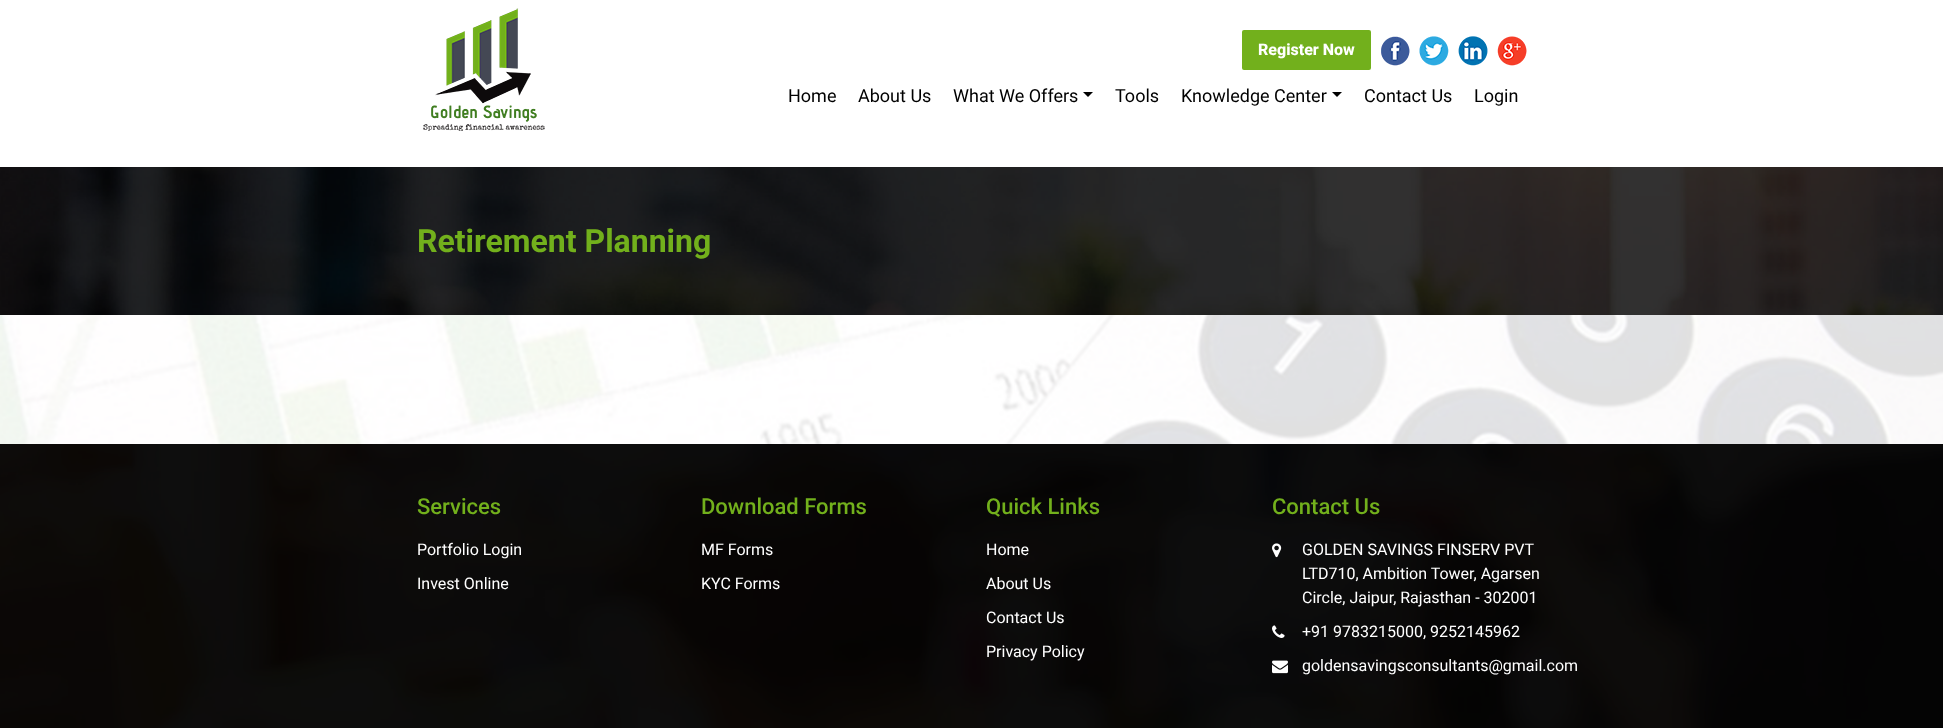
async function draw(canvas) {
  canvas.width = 1943
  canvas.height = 728
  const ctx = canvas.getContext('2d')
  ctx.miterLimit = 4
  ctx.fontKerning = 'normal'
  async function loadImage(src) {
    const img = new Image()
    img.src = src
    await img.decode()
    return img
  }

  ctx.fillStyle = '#fff'
  ctx.fillRect(0, 0, 1943, 728)
  ctx.drawImage(await loadImage('image0.png'), 423, 8, 122, 123)
  ctx.fillStyle = '#72b01c'
  ctx.beginPath()
  ctx.roundRect(1242, 30, 129, 40, 2)
  ctx.fill()
  ctx.font = '800 16px Roboto'
  ctx.fillStyle = '#fff'
  ctx.fillText('Register Now', 1258, 55)
  ctx.drawImage(await loadImage('image1.png'), 1381, 36, 29, 30)
  ctx.drawImage(await loadImage('image2.png'), 1419, 36, 30, 30)
  ctx.drawImage(await loadImage('image3.png'), 1458, 36, 30, 30)
  ctx.drawImage(await loadImage('image4.png'), 1497, 36, 30, 30)
  ctx.font = '18px Roboto'
  ctx.fillStyle = '#000'
  ctx.fillText('Home', 788, 102)
  ctx.fillText('About Us', 858, 102)
  ctx.fillText('What We Offers', 953, 102)
  ctx.beginPath()
  ctx.moveTo(1083, 92)
  ctx.lineTo(1093, 92)
  ctx.lineTo(1088, 97)
  ctx.closePath()
  ctx.fill()
  ctx.fillText('Tools', 1115, 102)
  ctx.fillText('Knowledge Center', 1181, 102)
  ctx.beginPath()
  ctx.moveTo(1332, 92)
  ctx.lineTo(1342, 92)
  ctx.lineTo(1337, 97)
  ctx.closePath()
  ctx.fill()
  ctx.fillText('Contact Us', 1364, 102)
  ctx.fillText('Login', 1474, 102)
  ctx.drawImage(await loadImage('image5.png'), 0, 167, 1943, 148)
  ctx.font = 'bold 32px Roboto'
  ctx.fillStyle = '#72b01c'
  ctx.fillText('Retirement Planning', 417, 252)
  ctx.drawImage(await loadImage('image6.png'), 0, 315, 1943, 129)
  ctx.drawImage(await loadImage('image7.png'), 0, 444, 1943, 284)
  ctx.font = '500 22px Roboto'
  ctx.fillText('Services', 417, 514)
  ctx.font = '16px Roboto'
  ctx.fillStyle = '#fff'
  ctx.fillText('Portfolio Login', 417, 555)
  ctx.fillText('Invest Online', 417, 589)
  ctx.font = '500 22px Roboto'
  ctx.fillStyle = '#72b01c'
  ctx.fillText('Download Forms', 701, 514)
  ctx.font = '16px Roboto'
  ctx.fillStyle = '#fff'
  ctx.fillText('MF Forms', 701, 555)
  ctx.fillText('KYC Forms', 701, 589)
  ctx.font = '500 22px Roboto'
  ctx.fillStyle = '#72b01c'
  ctx.fillText('Quick Links', 986, 514)
  ctx.font = '16px Roboto'
  ctx.fillStyle = '#fff'
  ctx.fillText('Home', 986, 555)
  ctx.fillText('About Us', 986, 589)
  ctx.fillText('Contact Us', 986, 623)
  ctx.fillText('Privacy Policy', 986, 657)
  ctx.font = '500 22px Roboto'
  ctx.fillStyle = '#72b01c'
  ctx.fillText('Contact Us', 1272, 514)
  ctx.drawImage(await loadImage('image8.png'), 1272, 543, 10, 15)
  ctx.font = '16px Roboto'
  ctx.fillStyle = '#fff'
  ctx.fillText('GOLDEN SAVINGS FINSERV PVT', 1302, 555)
  ctx.fillText('LTD710, Ambition Tower, Agarsen', 1302, 579)
  ctx.fillText('Circle, Jaipur, Rajasthan - 302001', 1302, 603)
  ctx.drawImage(await loadImage('image9.png'), 1272, 625, 13, 13)
  ctx.fillText('+91 9783215000, 9252145962', 1302, 637)
  ctx.drawImage(await loadImage('image10.png'), 1272, 660, 16, 14)
  ctx.fillText('goldensavingsconsultants@gmail.com', 1302, 671)
}

draw(document.querySelector('canvas'))
